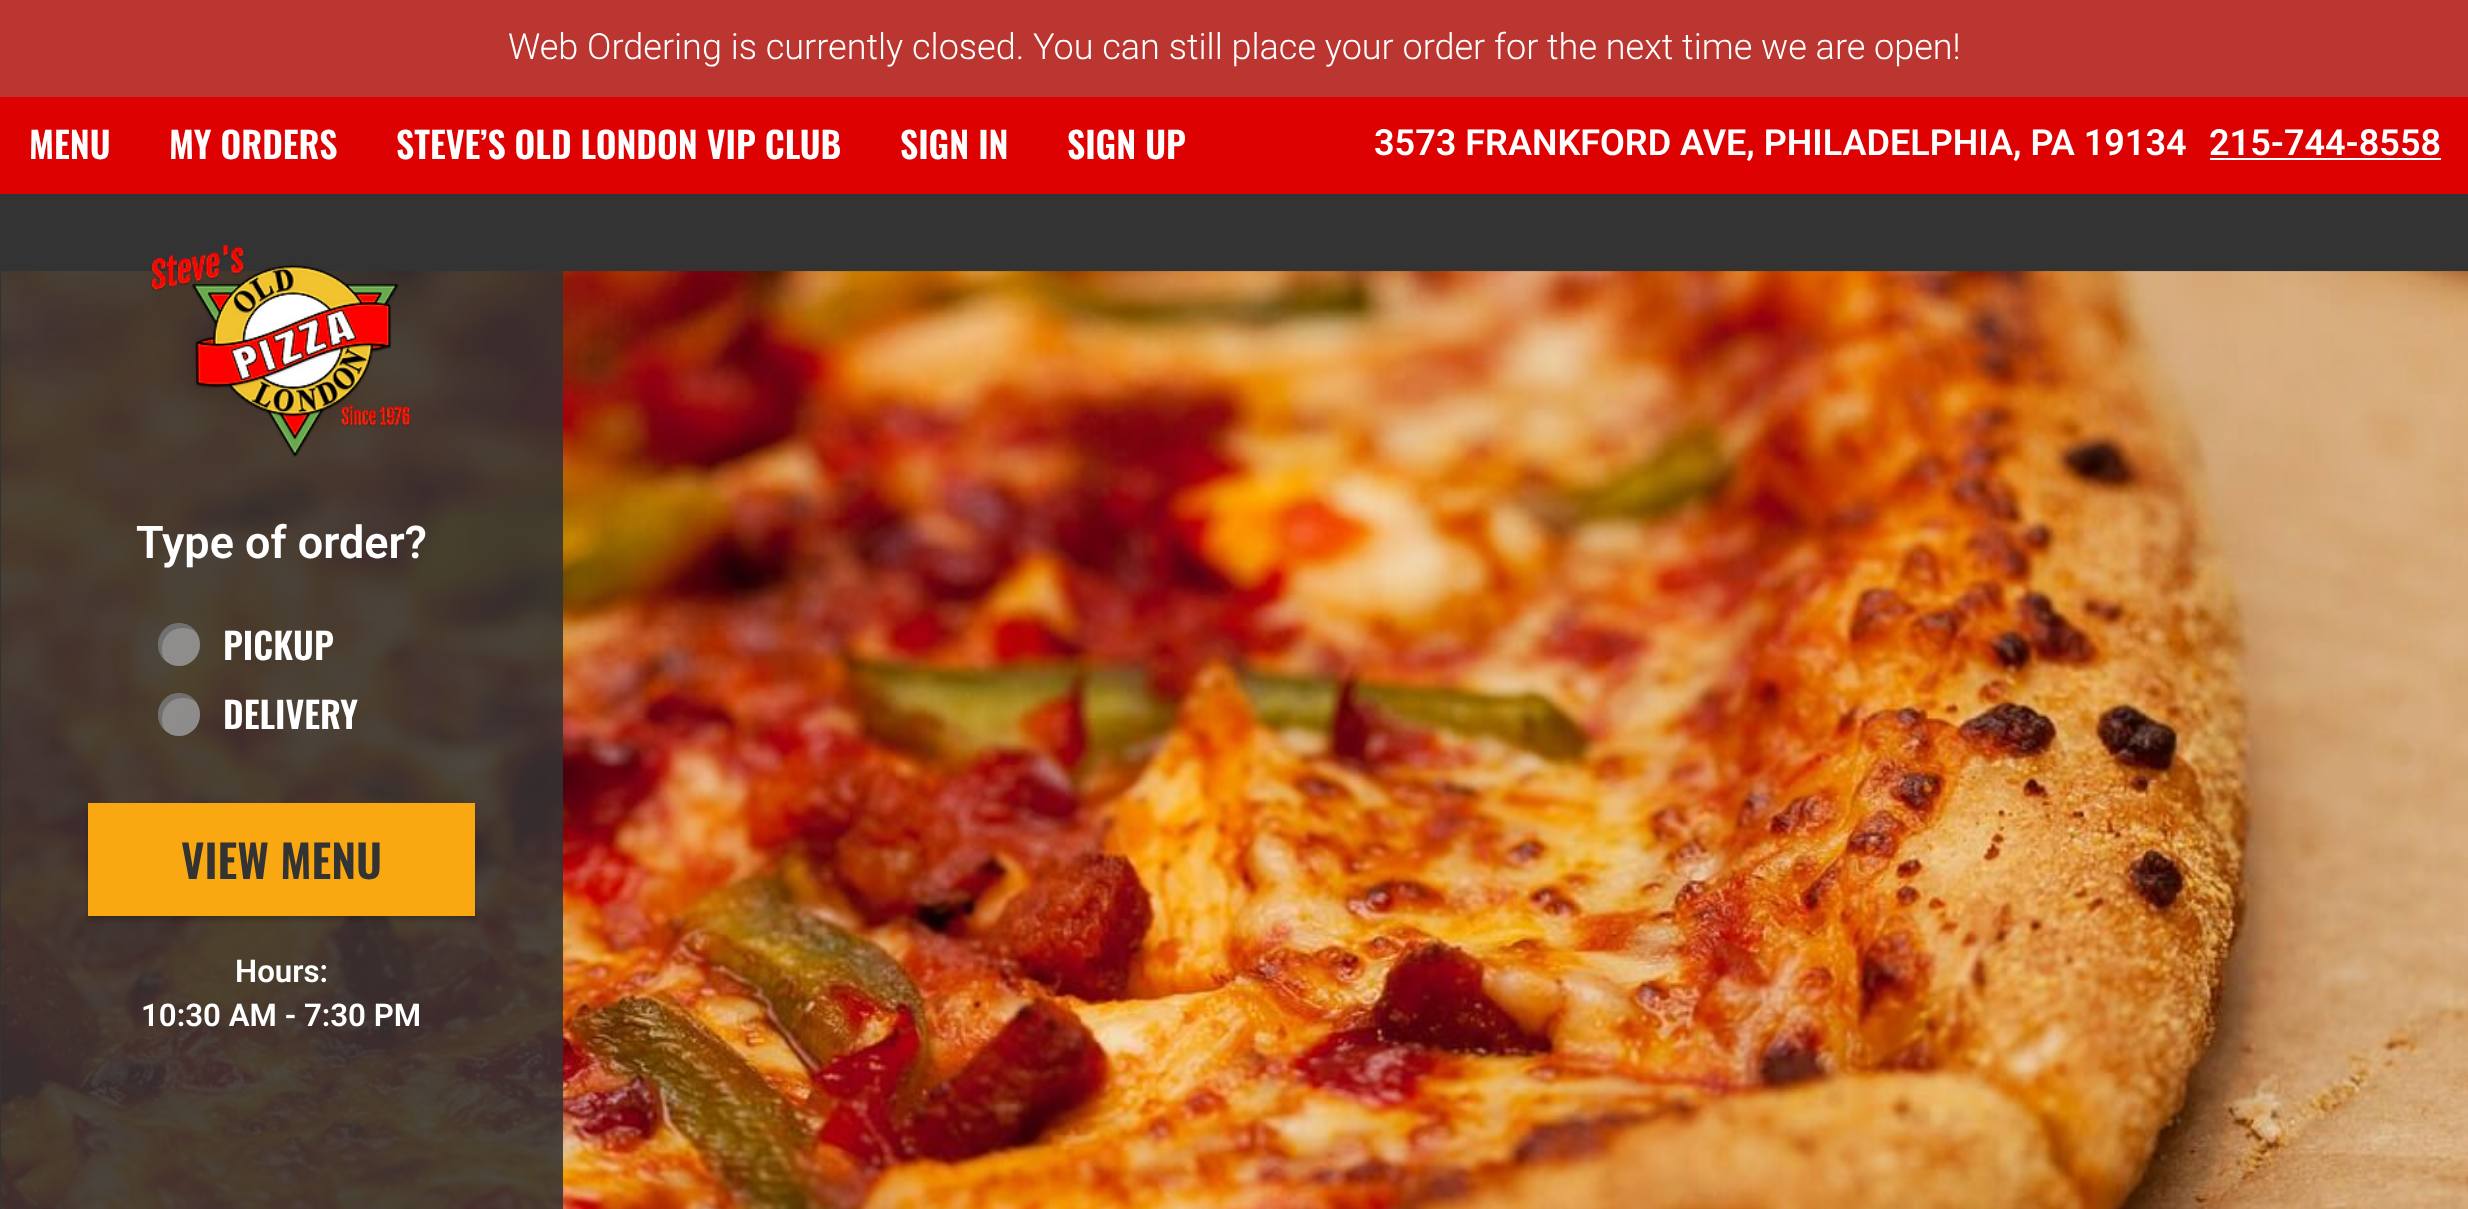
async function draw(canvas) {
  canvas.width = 2468
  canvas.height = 1209
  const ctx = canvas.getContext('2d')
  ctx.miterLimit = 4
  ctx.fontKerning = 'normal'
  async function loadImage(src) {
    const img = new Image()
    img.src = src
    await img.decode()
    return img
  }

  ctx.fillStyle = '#333'
  ctx.fillRect(0, 0, 2468, 1209)
  ctx.fillStyle = '#bb3531'
  ctx.fillRect(0, 0, 2468, 97)
  ctx.font = '300 36px Roboto'
  ctx.fillStyle = '#fff'
  ctx.fillText('Web Ordering is currently closed. You can still place your order for the next time we are open!', 508, 59)
  ctx.fillStyle = '#dd0101'
  ctx.fillRect(0, 97, 2468, 97)
  ctx.font = '600 36px Oswald'
  ctx.fillStyle = '#fff'
  ctx.fillText('MENU', 29, 159)
  ctx.fillText('MY ORDERS', 169, 159)
  ctx.fillText('STEVE’S OLD LONDON VIP CLUB', 396, 159)
  ctx.fillText('SIGN IN', 900, 159)
  ctx.fillText('SIGN UP', 1067, 159)
  ctx.font = '600 36px Roboto'
  ctx.fillText('3573 FRANKFORD AVE, PHILADELPHIA, PA 19134', 1374, 155)
  ctx.fillText('215-744-8558', 2209, 155)
  ctx.fillRect(2210, 158, 231, 2)
  ctx.drawImage(await loadImage('image0.png'), 1, 271, 2467, 938)
  ctx.fillStyle = '#333333de'
  ctx.fillRect(1, 271, 562, 938)
  ctx.drawImage(await loadImage('image1.png'), 151, 245, 260, 212)
  ctx.font = '600 45px Roboto'
  ctx.fillStyle = '#fff'
  ctx.fillText('Type of order?', 136, 558)
  ctx.fillStyle = '#969696e6'
  ctx.beginPath()
  ctx.roundRect(158, 623, 42, 43, 21)
  ctx.fill()
  ctx.fillStyle = '#00000033'
  ctx.beginPath()
  ctx.moveTo(183, 628)
  ctx.bezierCurveTo(188.5, 628, 193, 629.5, 196.5, 632.5)
  ctx.bezierCurveTo(189.5, 621.5, 173.5, 620, 164, 629)
  ctx.bezierCurveTo(155.5, 638, 156, 653, 165.5, 661)
  ctx.bezierCurveTo(157.5, 648.5, 163.5, 628, 183, 628)
  ctx.closePath()
  ctx.fill()
  ctx.font = '600 36px Oswald'
  ctx.fillStyle = '#fff'
  ctx.fillText('PICKUP', 223, 660)
  ctx.fillStyle = '#969696e6'
  ctx.beginPath()
  ctx.roundRect(158, 693, 42, 43, 21)
  ctx.fill()
  ctx.fillStyle = '#00000033'
  ctx.beginPath()
  ctx.moveTo(183, 698)
  ctx.bezierCurveTo(188.5, 698, 193, 699.5, 196.5, 702.5)
  ctx.bezierCurveTo(189.5, 691.5, 173.5, 690, 164, 699)
  ctx.bezierCurveTo(155.5, 708, 156, 723, 165.5, 731)
  ctx.bezierCurveTo(157.5, 718.5, 163.5, 698, 183, 698)
  ctx.closePath()
  ctx.fill()
  ctx.fillStyle = '#fff'
  ctx.fillText('DELIVERY', 223, 729)
  ctx.fillStyle = '#00000033'
  ctx.filter = 'blur(2px)'
  ctx.beginPath()
  ctx.rect(88, 808, 387, 112)
  ctx.fill()
  ctx.filter = 'none'
  ctx.fillStyle = '#faa811'
  ctx.fillRect(88, 803, 387, 113)
  ctx.font = '600 45px Oswald'
  ctx.fillStyle = '#333'
  ctx.fillText('VIEW MENU', 181, 879)
  ctx.font = '600 31.25px Roboto'
  ctx.fillStyle = '#fff'
  ctx.fillText('Hours:', 235, 982)
  ctx.fillText('10:30 AM - 7:30 PM', 141, 1026)
}

draw(document.querySelector('canvas'))
